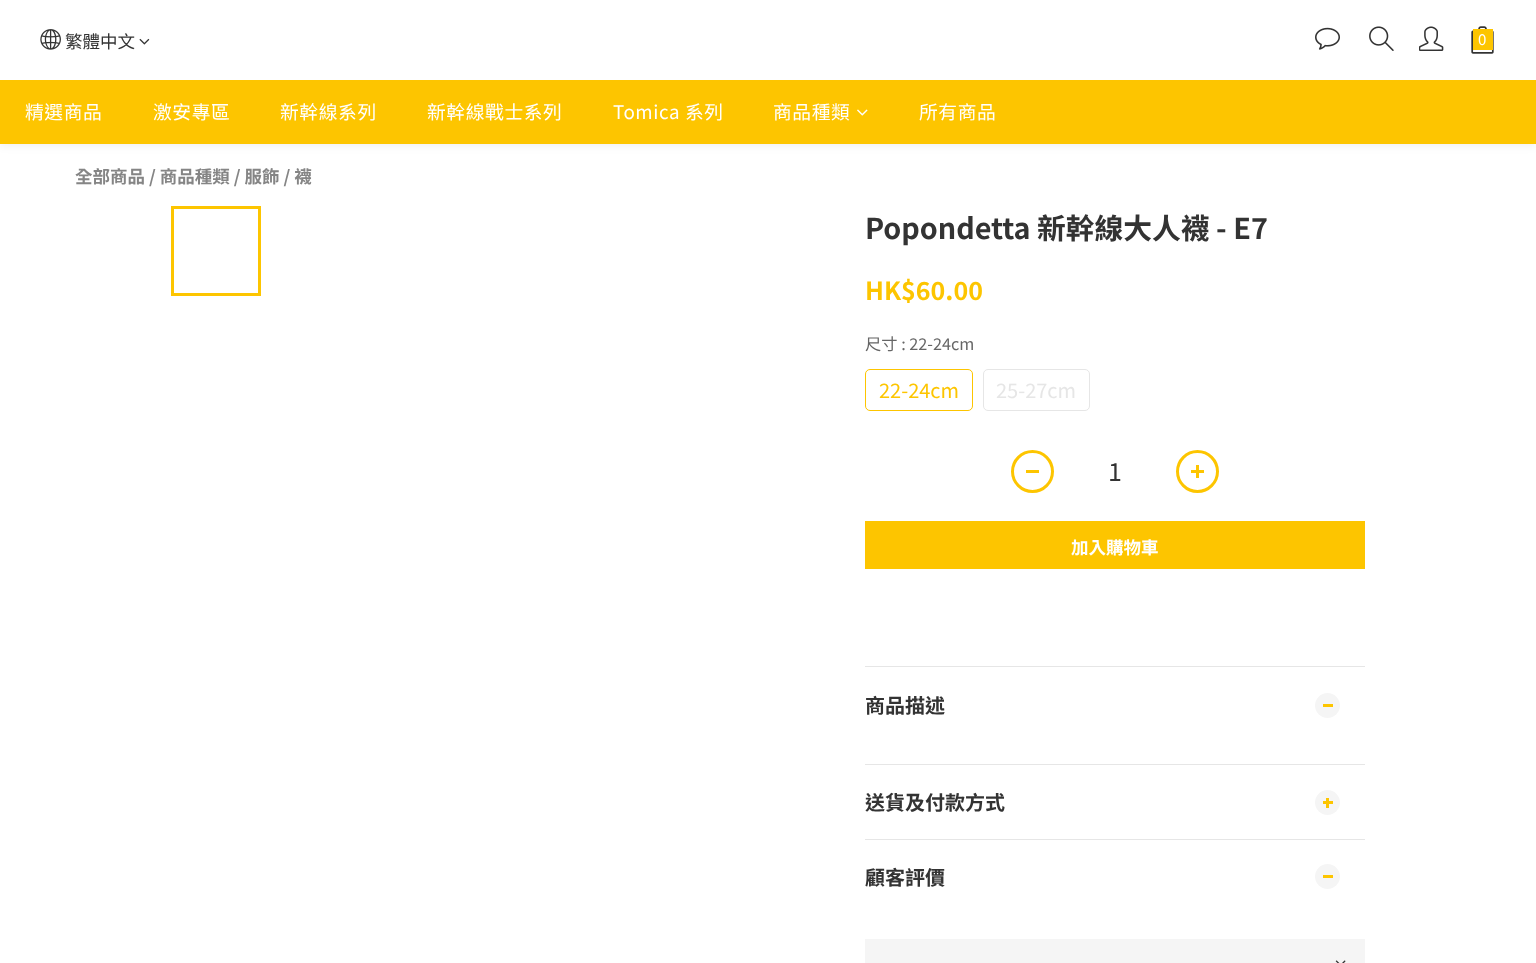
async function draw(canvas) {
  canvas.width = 1536
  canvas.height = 963
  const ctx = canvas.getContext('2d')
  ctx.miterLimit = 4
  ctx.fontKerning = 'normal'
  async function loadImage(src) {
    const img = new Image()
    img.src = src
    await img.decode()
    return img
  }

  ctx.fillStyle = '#fff'
  ctx.fillRect(0, 0, 1536, 963)
  ctx.fillStyle = '#0000000f'
  ctx.filter = 'blur(4px)'
  ctx.beginPath()
  ctx.rect(0, 3, 1536, 143)
  ctx.fill()
  ctx.filter = 'none'
  ctx.fillStyle = '#fff'
  ctx.fillRect(0, 0, 1536, 80)
  ctx.drawImage(await loadImage('image0.png'), 40, 29, 21, 21)
  ctx.font = '17.5px Noto Sans TC'
  ctx.fillStyle = '#333'
  ctx.fillText('繁體中文', 65, 48)
  ctx.drawImage(await loadImage('image1.png'), 139, 38, 11, 7)
  ctx.drawImage(await loadImage('image2.png'), 1315, 27, 25, 23)
  ctx.drawImage(await loadImage('image3.png'), 1369, 26, 25, 25)
  ctx.drawImage(await loadImage('image4.png'), 1419, 26, 25, 25)
  ctx.drawImage(await loadImage('image5.png'), 1471, 26, 23, 28)
  ctx.fillStyle = '#fdc500'
  ctx.fillRect(1473, 29, 20, 21)
  ctx.font = '15px Noto Sans TC'
  ctx.fillStyle = '#fff'
  ctx.fillText('0', 1478, 45)
  ctx.fillStyle = '#fdc500'
  ctx.fillRect(0, 80, 1536, 64)
  ctx.letterSpacing = '0.6px'
  ctx.font = '18.75px Noto Sans TC'
  ctx.fillStyle = '#fff'
  ctx.fillText('精選商品', 25, 119)
  ctx.fillText('激安專區', 153, 119)
  ctx.fillText('新幹線系列', 280, 119)
  ctx.fillText('新幹線戰士系列', 427, 119)
  ctx.fillText('Tomica 系列', 613, 119)
  ctx.fillText('商品種類', 773, 119)
  ctx.drawImage(await loadImage('image6.png'), 857, 109, 11, 7)
  ctx.fillText('所有商品', 919, 119)
  ctx.letterSpacing = '0px'
  ctx.font = 'bold 17.5px Noto Sans TC'
  ctx.fillStyle = '#858585'
  ctx.fillText('全部商品 / 商品種類 / 服飾 / 襪', 75, 183)
  ctx.strokeStyle = '#fdc500'
  ctx.lineWidth = 3
  ctx.strokeRect(172.5, 207.5, 87, 87)
  ctx.font = 'bold 28.75px Noto Sans TC'
  ctx.fillStyle = '#333'
  ctx.fillText('Popondetta 新幹線大人襪 - E7', 865, 239)
  ctx.font = 'bold 25px Noto Sans TC'
  ctx.fillStyle = '#fdc500'
  ctx.fillText('HK$60.00', 865, 300)
  ctx.font = '16.25px Noto Sans TC'
  ctx.fillStyle = '#666'
  ctx.fillText('尺寸 : 22-24cm', 865, 350)
  ctx.beginPath()
  ctx.roundRect(865.5, 369.5, 107, 41, 4.5)
  ctx.lineWidth = 1
  ctx.stroke()
  ctx.font = '20px Noto Sans TC'
  ctx.fillStyle = '#fdc500'
  ctx.fillText('22-24cm', 879, 398)
  ctx.beginPath()
  ctx.roundRect(983.5, 369.5, 106, 41, 4.5)
  ctx.strokeStyle = '#e6e6e6'
  ctx.stroke()
  ctx.fillStyle = '#e6e6e6'
  ctx.fillText('25-27cm', 996, 398)
  ctx.beginPath()
  ctx.arc(1032.5, 471.5, 20, 0, 2 * Math.PI)
  ctx.strokeStyle = '#fdc500'
  ctx.lineWidth = 3
  ctx.stroke()
  ctx.fillStyle = '#fdc500'
  ctx.fillRect(1026, 470, 13, 3)
  ctx.font = '25px Noto Sans TC'
  ctx.fillStyle = '#333'
  ctx.fillText('1', 1108, 481)
  ctx.beginPath()
  ctx.arc(1197.5, 471.5, 20, 0, 2 * Math.PI)
  ctx.stroke()
  ctx.fillStyle = '#fdc500'
  ctx.fillRect(1191, 470, 13, 3)
  ctx.fillRect(1196, 465, 3, 13)
  ctx.fillRect(865, 521, 500, 48)
  ctx.font = 'bold 17.5px Noto Sans TC'
  ctx.fillStyle = '#fff'
  ctx.fillText('加入購物車', 1071, 554)
  ctx.fillStyle = '#e6e6e6'
  ctx.fillRect(865, 666, 500, 1)
  ctx.font = 'bold 20px Noto Sans TC'
  ctx.fillStyle = '#333'
  ctx.fillText('商品描述', 865, 713)
  ctx.fillStyle = '#f5f5f5'
  ctx.beginPath()
  ctx.arc(1327.5, 705.5, 12.5, 0, 2 * Math.PI)
  ctx.fill()
  ctx.fillStyle = '#fdc500'
  ctx.fillRect(1323, 704, 10, 3)
  ctx.fillStyle = '#e6e6e6'
  ctx.fillRect(865, 764, 500, 1)
  ctx.fillStyle = '#333'
  ctx.fillText('送貨及付款方式', 865, 810)
  ctx.fillStyle = '#f5f5f5'
  ctx.beginPath()
  ctx.arc(1327.5, 802.5, 12.5, 0, 2 * Math.PI)
  ctx.fill()
  ctx.fillStyle = '#fdc500'
  ctx.fillRect(1323, 801, 10, 3)
  ctx.fillRect(1326, 798, 3, 10)
  ctx.fillStyle = '#e6e6e6'
  ctx.fillRect(865, 839, 500, 1)
  ctx.fillStyle = '#333'
  ctx.fillText('顧客評價', 865, 885)
  ctx.fillStyle = '#f5f5f5'
  ctx.beginPath()
  ctx.arc(1327.5, 876.5, 12.5, 0, 2 * Math.PI)
  ctx.fill()
  ctx.fillStyle = '#fdc500'
  ctx.fillRect(1323, 875, 10, 3)
  ctx.fillStyle = '#f5f5f5'
  ctx.fillRect(865, 939, 500, 24)
  ctx.drawImage(await loadImage('image7.png'), 1335, 960, 11, 3)
}

draw(document.querySelector('canvas'))
